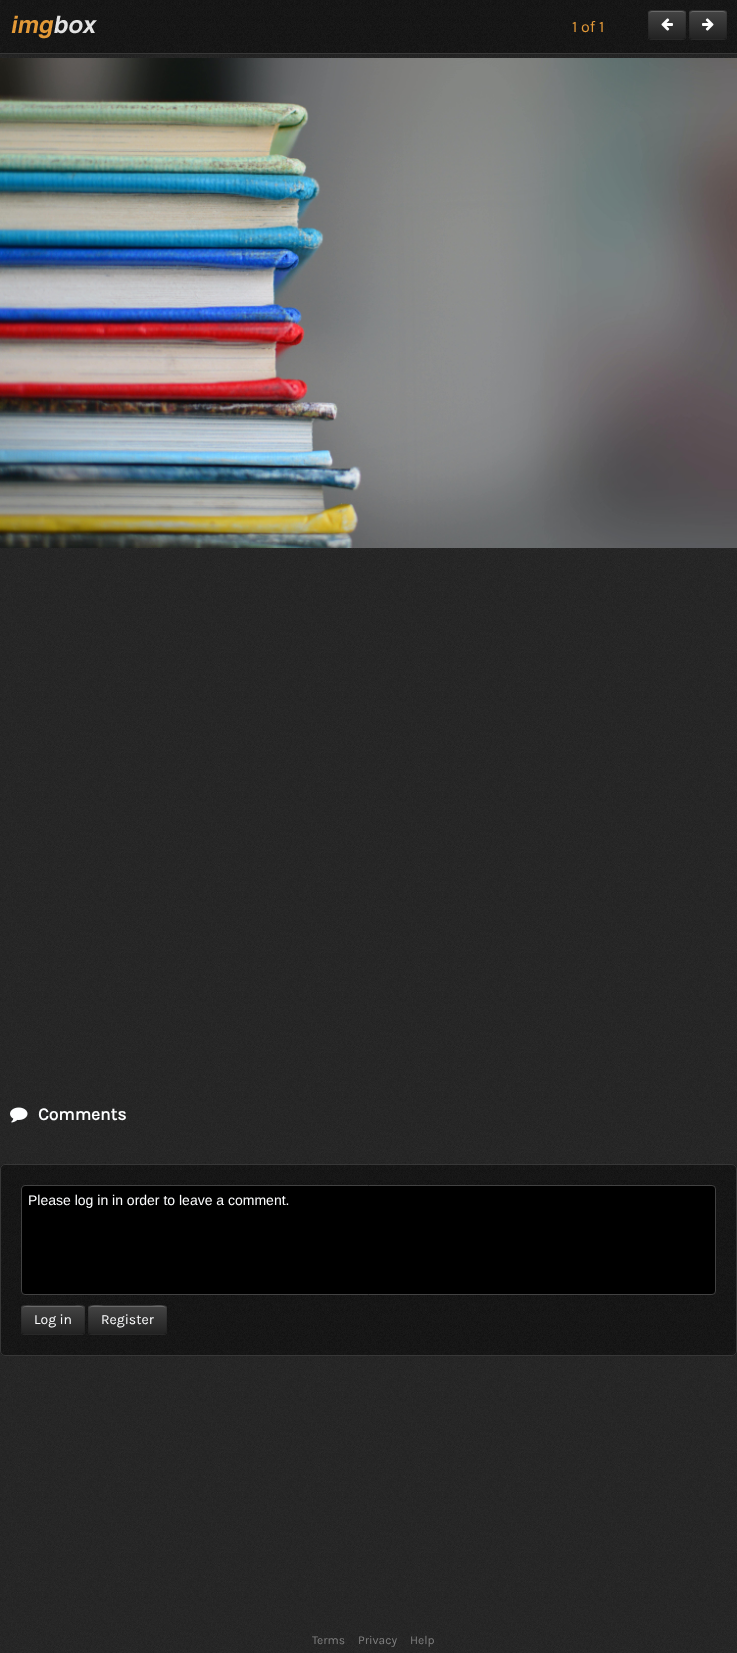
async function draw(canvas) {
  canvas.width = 737
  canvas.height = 1653
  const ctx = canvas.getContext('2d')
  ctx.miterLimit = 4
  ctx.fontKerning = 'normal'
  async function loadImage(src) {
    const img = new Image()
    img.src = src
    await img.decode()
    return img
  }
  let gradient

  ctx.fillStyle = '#fff'
  ctx.fillRect(0, 0, 737, 1653)
  ctx.drawImage(await loadImage('image0.png'), 0, 54, 737, 1599)
  ctx.fillStyle = '#0000001a'
  ctx.filter = 'blur(5px)'
  ctx.beginPath()
  ctx.rect(0, 1, 737, 54)
  ctx.fill()
  ctx.filter = 'none'
  ctx.drawImage(await loadImage('image1.png'), 0, 0, 737, 53)
  ctx.fillStyle = '#373737'
  ctx.fillRect(0, 53, 737, 1)
  ctx.drawImage(await loadImage('image2.png'), 11, 15, 86, 24)
  ctx.font = '16px Karla'
  ctx.fillStyle = '#e39938'
  ctx.fillText('1 of 1', 572, 32)
  ctx.fillStyle = '#363636'
  ctx.beginPath()
  ctx.roundRect(648, 10, 38, 30, 4)
  ctx.fill()
  ctx.save()
  ctx.beginPath()
  ctx.roundRect(648, 10, 38, 30, 4)
  ctx.clip()
  gradient = ctx.createLinearGradient(667, 11, 667, 39)
  gradient.addColorStop(0, '#444')
  gradient.addColorStop(1, '#222')
  ctx.fillStyle = gradient
  ctx.fillRect(648, 11, 38, 28)
  ctx.restore()
  ctx.fillStyle = '#696969'
  ctx.beginPath()
  ctx.moveTo(652, 12)
  ctx.lineTo(682, 12)
  ctx.bezierCurveTo(684, 12, 685, 13, 685, 15)
  ctx.bezierCurveTo(685, 10, 681, 11, 677, 11)
  ctx.lineTo(657, 11)
  ctx.bezierCurveTo(653, 11, 649, 10, 649, 15)
  ctx.bezierCurveTo(649, 13, 650, 12, 652, 12)
  ctx.closePath()
  ctx.fill()
  ctx.beginPath()
  ctx.moveTo(684.5, 38.5)
  ctx.bezierCurveTo(684, 39, 683, 39.5, 682, 39.5)
  ctx.lineTo(652, 39.5)
  ctx.bezierCurveTo(651, 39.5, 650, 39, 649.5, 38.5)
  ctx.strokeStyle = '#00000040'
  ctx.stroke()
  ctx.beginPath()
  ctx.moveTo(649.5, 38.5)
  ctx.bezierCurveTo(649, 38, 648.5, 37, 648.5, 36)
  ctx.lineTo(648.5, 14)
  ctx.bezierCurveTo(648.5, 13, 649, 12, 649.5, 11.5)
  ctx.bezierCurveTo(650, 11, 651, 10.5, 652, 10.5)
  ctx.lineTo(682, 10.5)
  ctx.bezierCurveTo(683, 10.5, 684, 11, 684.5, 11.5)
  ctx.bezierCurveTo(685, 12, 685.5, 13, 685.5, 14)
  ctx.lineTo(685.5, 36)
  ctx.bezierCurveTo(685.5, 37, 685, 38, 684.5, 38.5)
  ctx.strokeStyle = '#0000001a'
  ctx.stroke()
  ctx.drawImage(await loadImage('image3.png'), 661, 18, 12, 13)
  ctx.fillStyle = '#363636'
  ctx.beginPath()
  ctx.roundRect(689, 10, 38, 30, 4)
  ctx.fill()
  ctx.save()
  ctx.beginPath()
  ctx.roundRect(689, 10, 38, 30, 4)
  ctx.clip()
  gradient = ctx.createLinearGradient(708, 11, 708, 39)
  gradient.addColorStop(0, '#444')
  gradient.addColorStop(1, '#222')
  ctx.fillStyle = gradient
  ctx.fillRect(689, 11, 38, 28)
  ctx.restore()
  ctx.fillStyle = '#696969'
  ctx.beginPath()
  ctx.moveTo(693, 12)
  ctx.lineTo(723, 12)
  ctx.bezierCurveTo(725, 12, 726, 13, 726, 15)
  ctx.bezierCurveTo(726, 10, 722, 11, 718, 11)
  ctx.lineTo(698, 11)
  ctx.bezierCurveTo(694, 11, 690, 10, 690, 15)
  ctx.bezierCurveTo(690, 13, 691, 12, 693, 12)
  ctx.closePath()
  ctx.fill()
  ctx.beginPath()
  ctx.moveTo(725.5, 38.5)
  ctx.bezierCurveTo(725, 39, 724, 39.5, 723, 39.5)
  ctx.lineTo(693, 39.5)
  ctx.bezierCurveTo(692, 39.5, 691, 39, 690.5, 38.5)
  ctx.strokeStyle = '#00000040'
  ctx.stroke()
  ctx.beginPath()
  ctx.moveTo(690.5, 38.5)
  ctx.bezierCurveTo(690, 38, 689.5, 37, 689.5, 36)
  ctx.lineTo(689.5, 14)
  ctx.bezierCurveTo(689.5, 13, 690, 12, 690.5, 11.5)
  ctx.bezierCurveTo(691, 11, 692, 10.5, 693, 10.5)
  ctx.lineTo(723, 10.5)
  ctx.bezierCurveTo(724, 10.5, 725, 11, 725.5, 11.5)
  ctx.bezierCurveTo(726, 12, 726.5, 13, 726.5, 14)
  ctx.lineTo(726.5, 36)
  ctx.bezierCurveTo(726.5, 37, 726, 38, 725.5, 38.5)
  ctx.strokeStyle = '#0000001a'
  ctx.stroke()
  ctx.drawImage(await loadImage('image4.png'), 702, 18, 12, 13)
  ctx.drawImage(await loadImage('image5.png'), 0, 58, 737, 490)
  ctx.drawImage(await loadImage('image6.png'), 10, 1107, 18, 16)
  ctx.font = 'bold 17.5px Karla'
  ctx.fillStyle = '#fdfeff'
  ctx.fillText('Comments', 38, 1120)
  ctx.drawImage(await loadImage('image7.png'), 0, 1164, 737, 192)
  ctx.beginPath()
  ctx.roundRect(0.5, 1164.5, 736, 191, 4.5)
  ctx.strokeStyle = '#373737'
  ctx.stroke()
  ctx.fillStyle = '#000'
  ctx.beginPath()
  ctx.roundRect(21.5, 1185.5, 694, 109, 3.5)
  ctx.fill()
  ctx.strokeStyle = '#424242'
  ctx.stroke()
  ctx.font = '14px Liberation Sans'
  ctx.fillStyle = '#fdfeff'
  ctx.fillText('Please log in in order to leave a comment.', 28, 1205)
  ctx.fillStyle = '#363636'
  ctx.beginPath()
  ctx.roundRect(21, 1305, 64, 30, 4)
  ctx.fill()
  ctx.save()
  ctx.beginPath()
  ctx.roundRect(21, 1305, 64, 30, 4)
  ctx.clip()
  gradient = ctx.createLinearGradient(53, 1306, 53, 1334)
  gradient.addColorStop(0, '#444')
  gradient.addColorStop(1, '#222')
  ctx.fillStyle = gradient
  ctx.fillRect(21, 1306, 64, 28)
  ctx.restore()
  ctx.fillStyle = '#696969'
  ctx.beginPath()
  ctx.moveTo(25, 1307)
  ctx.lineTo(81, 1307)
  ctx.bezierCurveTo(83, 1307, 84, 1308, 84, 1310)
  ctx.bezierCurveTo(84, 1304, 76, 1306, 72, 1306)
  ctx.lineTo(34, 1306)
  ctx.bezierCurveTo(30, 1306, 22, 1304, 22, 1310)
  ctx.bezierCurveTo(22, 1308, 23, 1307, 25, 1307)
  ctx.closePath()
  ctx.fill()
  ctx.beginPath()
  ctx.moveTo(83.5, 1333.5)
  ctx.lineTo(81.5, 1334.5)
  ctx.lineTo(24.5, 1334.5)
  ctx.lineTo(22.5, 1333.5)
  ctx.strokeStyle = '#00000040'
  ctx.stroke()
  ctx.beginPath()
  ctx.moveTo(22.5, 1333.5)
  ctx.bezierCurveTo(20.5, 1331.5, 21.5, 1323, 21.5, 1320)
  ctx.bezierCurveTo(21.5, 1304.5, 19, 1305.5, 34.5, 1305.5)
  ctx.lineTo(71.5, 1305.5)
  ctx.bezierCurveTo(87, 1305.5, 84.5, 1304.5, 84.5, 1320)
  ctx.bezierCurveTo(84.5, 1323, 85.5, 1331.5, 83.5, 1333.5)
  ctx.strokeStyle = '#0000001a'
  ctx.stroke()
  ctx.font = '14px Karla'
  ctx.fillStyle = '#fdfeff'
  ctx.fillText('Log in', 34, 1324)
  ctx.fillStyle = '#363636'
  ctx.beginPath()
  ctx.roundRect(88, 1305, 79, 30, 4)
  ctx.fill()
  ctx.save()
  ctx.beginPath()
  ctx.roundRect(88, 1305, 79, 30, 4)
  ctx.clip()
  gradient = ctx.createLinearGradient(128, 1306, 128, 1334)
  gradient.addColorStop(0, '#444')
  gradient.addColorStop(1, '#222')
  ctx.fillStyle = gradient
  ctx.fillRect(88, 1306, 79, 28)
  ctx.restore()
  ctx.fillStyle = '#ffffff33'
  ctx.beginPath()
  ctx.moveTo(92, 1307)
  ctx.lineTo(163, 1307)
  ctx.bezierCurveTo(165, 1307, 166, 1308, 166, 1310)
  ctx.bezierCurveTo(166, 1303, 155, 1306, 151, 1306)
  ctx.lineTo(104, 1306)
  ctx.bezierCurveTo(100, 1306, 89, 1303, 89, 1310)
  ctx.bezierCurveTo(89, 1308, 90, 1307, 92, 1307)
  ctx.closePath()
  ctx.fill()
  ctx.beginPath()
  ctx.moveTo(165.5, 1333.5)
  ctx.bezierCurveTo(165, 1334, 164, 1334.5, 163, 1334.5)
  ctx.lineTo(92, 1334.5)
  ctx.bezierCurveTo(91, 1334.5, 90, 1334, 89.5, 1333.5)
  ctx.strokeStyle = '#00000040'
  ctx.stroke()
  ctx.beginPath()
  ctx.moveTo(89.5, 1333.5)
  ctx.bezierCurveTo(87.5, 1331.5, 88.5, 1323, 88.5, 1320)
  ctx.bezierCurveTo(88.5, 1303, 86, 1305.5, 104, 1305.5)
  ctx.lineTo(151, 1305.5)
  ctx.bezierCurveTo(169, 1305.5, 166.5, 1303, 166.5, 1320)
  ctx.bezierCurveTo(166.5, 1323, 167.5, 1331.5, 165.5, 1333.5)
  ctx.strokeStyle = '#0000001a'
  ctx.stroke()
  ctx.fillStyle = '#fdfeff'
  ctx.fillText('Register', 101, 1324)
  ctx.font = '12px Karla'
  ctx.fillStyle = '#808080'
  ctx.fillText('Terms', 312, 1644)
  ctx.fillText('Privacy', 358, 1644)
  ctx.fillText('Help', 410, 1644)
}

draw(document.querySelector('canvas'))
